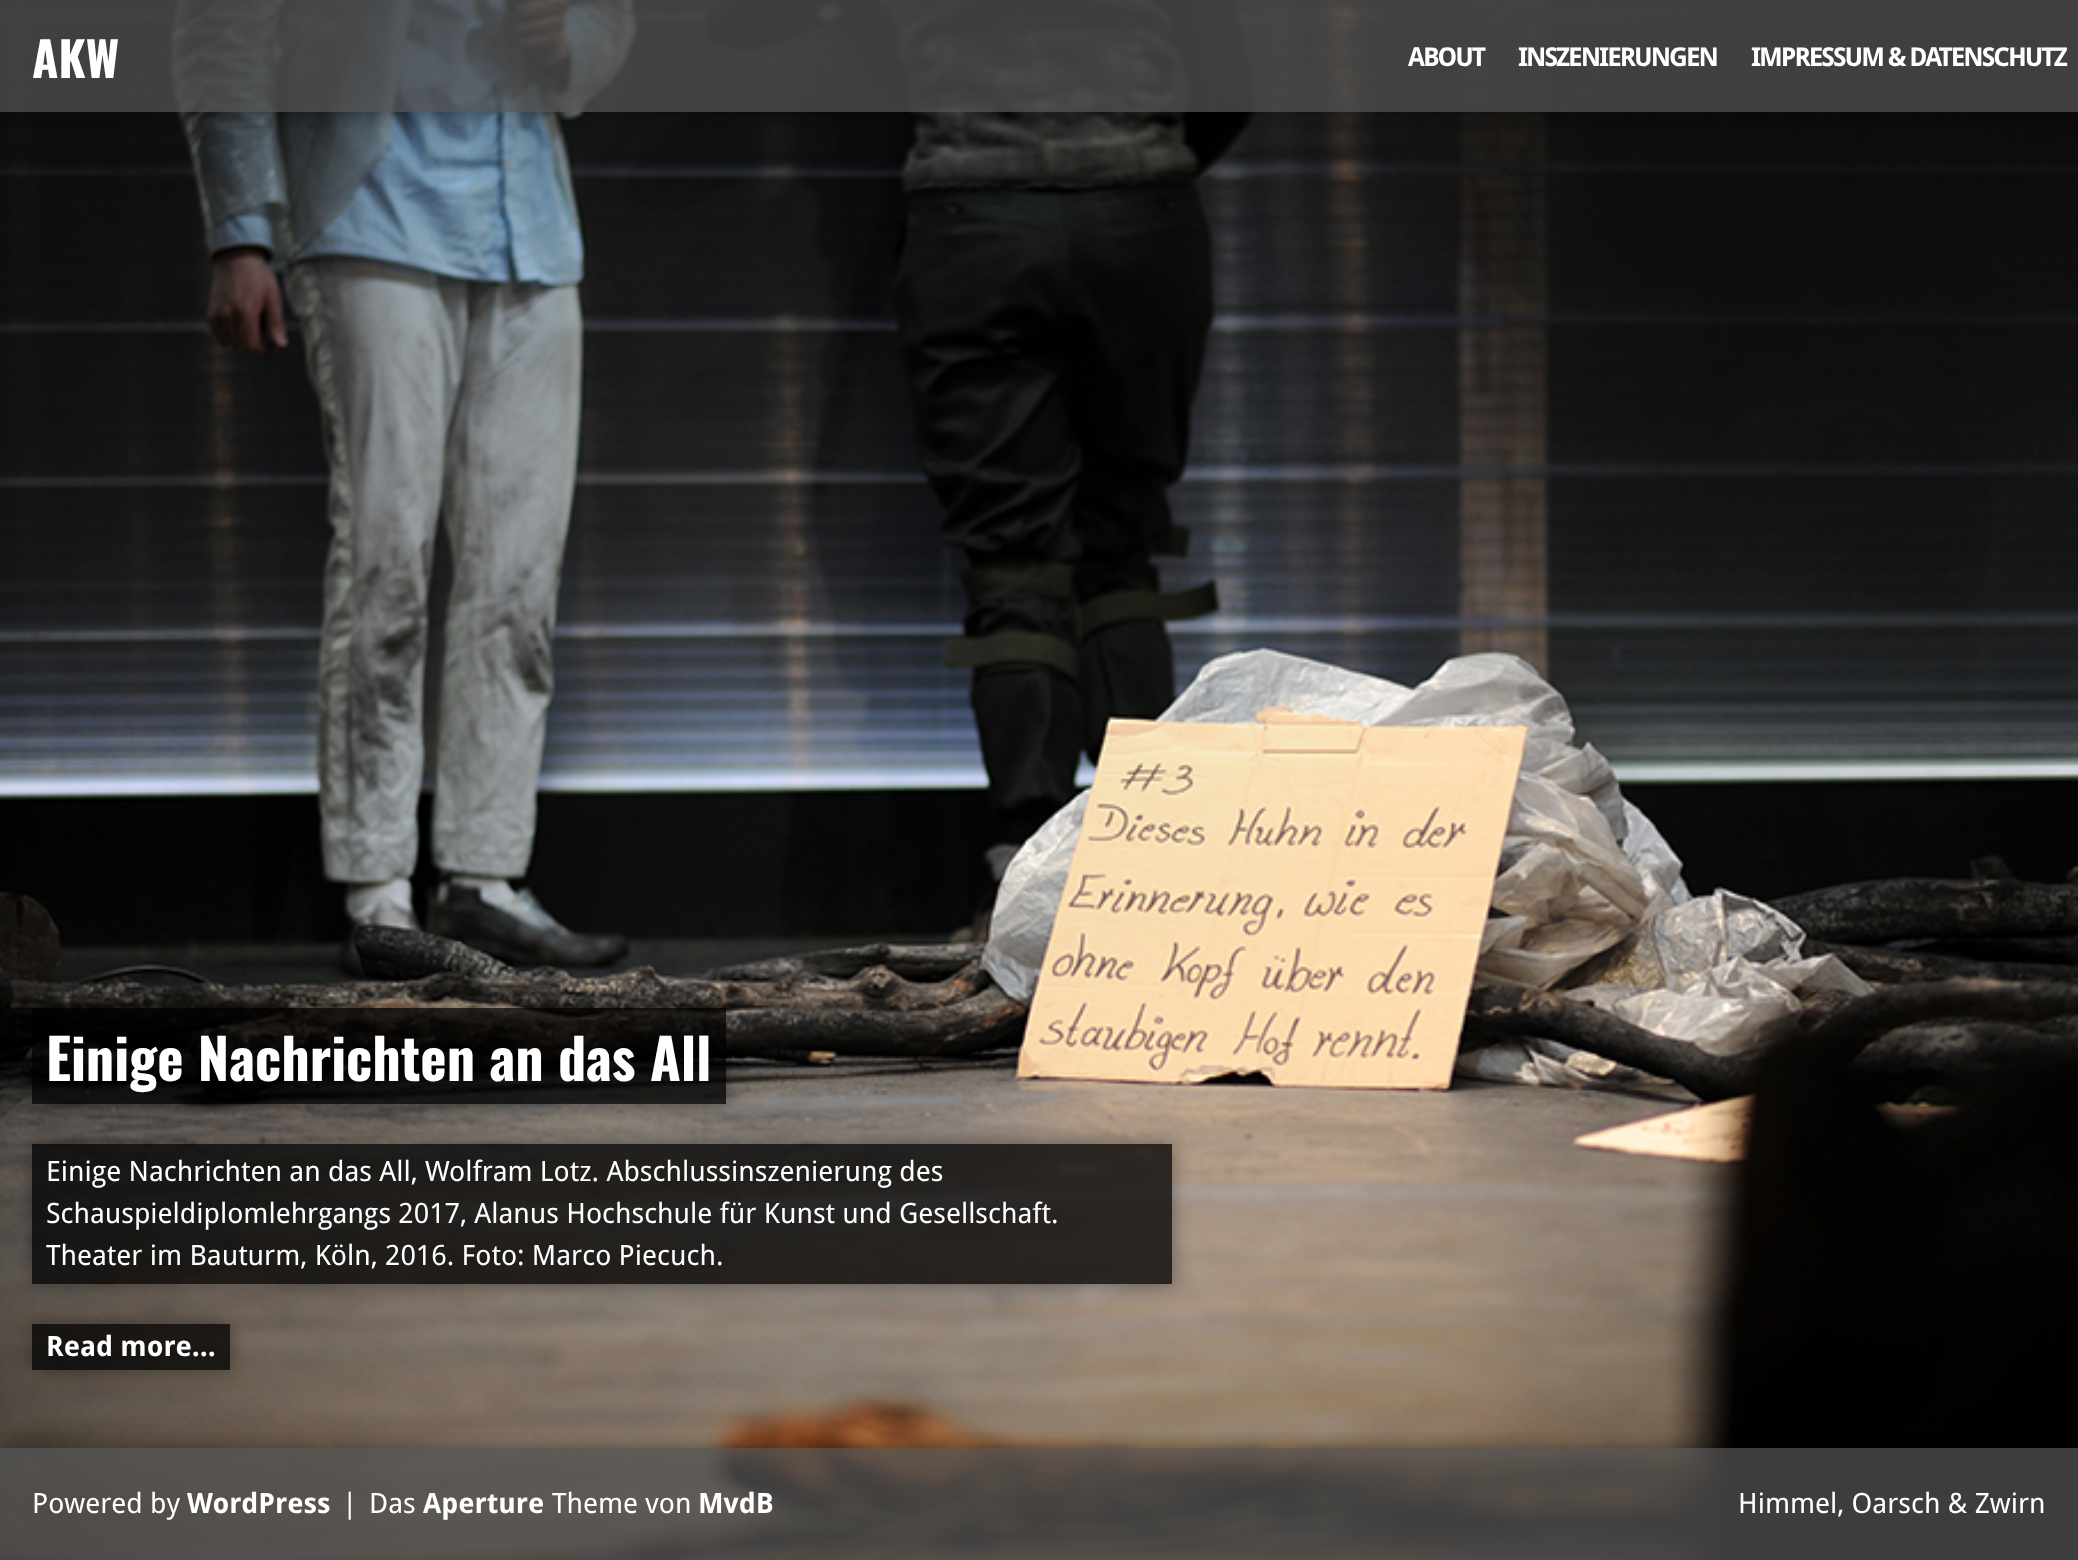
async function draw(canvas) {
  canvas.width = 2078
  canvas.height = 1560
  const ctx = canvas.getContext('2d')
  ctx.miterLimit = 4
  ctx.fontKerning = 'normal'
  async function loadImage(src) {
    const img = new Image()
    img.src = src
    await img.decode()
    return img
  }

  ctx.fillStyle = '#fff'
  ctx.fillRect(0, 0, 2078, 1560)
  ctx.drawImage(await loadImage('image0.png'), 0, 0, 2078, 1560)
  ctx.save()
  ctx.beginPath()
  ctx.rect(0, 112, 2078, 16)
  ctx.clip()
  ctx.fillStyle = '#00000066'
  ctx.filter = 'blur(10px)'
  ctx.beginPath()
  ctx.rect(0, 0, 2078, 112)
  ctx.fill()
  ctx.filter = 'none'
  ctx.restore()
  ctx.fillStyle = '#515151bf'
  ctx.fillRect(0, 0, 2078, 112)
  ctx.font = 'bold 48px Oswald'
  ctx.fillStyle = '#fff'
  ctx.fillText('AKW', 32, 78)
  ctx.letterSpacing = '-2px'
  ctx.font = 'bold 26px Droid Sans'
  ctx.fillText('ABOUT', 1408, 66)
  ctx.fillText('INSZENIERUNGEN', 1518, 66)
  ctx.fillText('IMPRESSUM & DATENSCHUTZ', 1751, 66)
  ctx.save()
  ctx.beginPath()
  ctx.moveTo(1, 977)
  ctx.lineTo(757, 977)
  ctx.lineTo(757, 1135)
  ctx.lineTo(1, 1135)
  ctx.closePath()
  ctx.moveTo(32, 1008)
  ctx.lineTo(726, 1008)
  ctx.lineTo(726, 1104)
  ctx.lineTo(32, 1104)
  ctx.closePath()
  ctx.clip('evenodd')
  ctx.fillStyle = '#00000066'
  ctx.filter = 'blur(10px)'
  ctx.beginPath()
  ctx.rect(32, 1008, 694, 96)
  ctx.fill()
  ctx.filter = 'none'
  ctx.restore()
  ctx.fillStyle = '#000000bf'
  ctx.fillRect(32, 1008, 694, 96)
  ctx.letterSpacing = '0px'
  ctx.font = 'bold 56px Oswald'
  ctx.fillStyle = '#fff'
  ctx.fillText('Einige Nachrichten an das All', 46, 1081)
  ctx.save()
  ctx.beginPath()
  ctx.moveTo(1, 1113)
  ctx.lineTo(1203, 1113)
  ctx.lineTo(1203, 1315)
  ctx.lineTo(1, 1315)
  ctx.closePath()
  ctx.moveTo(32, 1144)
  ctx.lineTo(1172, 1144)
  ctx.lineTo(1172, 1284)
  ctx.lineTo(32, 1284)
  ctx.closePath()
  ctx.clip('evenodd')
  ctx.fillStyle = '#00000066'
  ctx.filter = 'blur(10px)'
  ctx.beginPath()
  ctx.rect(32, 1144, 1140, 140)
  ctx.fill()
  ctx.filter = 'none'
  ctx.restore()
  ctx.fillStyle = '#000000bf'
  ctx.fillRect(32, 1144, 1140, 140)
  ctx.font = '28px Droid Sans'
  ctx.fillStyle = '#fff'
  ctx.fillText('Einige Nachrichten an das All, Wolfram Lotz. Abschlussinszenierung des', 46, 1181)
  ctx.fillText('Schauspieldiplomlehrgangs 2017, Alanus Hochschule für Kunst und Gesellschaft.', 46, 1223)
  ctx.fillText('Theater im Bauturm, Köln, 2016. Foto: Marco Piecuch.', 46, 1265)
  ctx.save()
  ctx.beginPath()
  ctx.moveTo(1, 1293)
  ctx.lineTo(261, 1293)
  ctx.lineTo(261, 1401)
  ctx.lineTo(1, 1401)
  ctx.closePath()
  ctx.moveTo(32, 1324)
  ctx.lineTo(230, 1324)
  ctx.lineTo(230, 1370)
  ctx.lineTo(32, 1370)
  ctx.closePath()
  ctx.clip('evenodd')
  ctx.fillStyle = '#00000066'
  ctx.filter = 'blur(10px)'
  ctx.beginPath()
  ctx.rect(32, 1324, 198, 46)
  ctx.fill()
  ctx.filter = 'none'
  ctx.restore()
  ctx.fillStyle = '#000000bf'
  ctx.fillRect(32, 1324, 198, 46)
  ctx.font = 'bold 28px Droid Sans'
  ctx.fillStyle = '#fff'
  ctx.fillText('Read more...', 46, 1356)
  ctx.save()
  ctx.beginPath()
  ctx.rect(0, 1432, 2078, 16)
  ctx.clip()
  ctx.fillStyle = '#00000066'
  ctx.filter = 'blur(10px)'
  ctx.beginPath()
  ctx.rect(0, 1448, 2078, 112)
  ctx.fill()
  ctx.filter = 'none'
  ctx.restore()
  ctx.fillStyle = '#515151bf'
  ctx.fillRect(0, 1448, 2078, 112)
  ctx.font = '28px Droid Sans'
  ctx.fillStyle = '#fff'
  ctx.fillText('Powered by', 32, 1513)
  ctx.font = 'bold 28px Droid Sans'
  ctx.fillText('WordPress', 187, 1513)
  ctx.font = '28px Droid Sans'
  ctx.fillText('|', 342, 1513)
  ctx.fillText('Das', 369, 1513)
  ctx.font = 'bold 28px Droid Sans'
  ctx.fillText('Aperture', 423, 1513)
  ctx.font = '28px Droid Sans'
  ctx.fillText('Theme von', 552, 1513)
  ctx.font = 'bold 28px Droid Sans'
  ctx.fillText('MvdB', 698, 1513)
  ctx.font = '28px Droid Sans'
  ctx.fillText('Himmel, Oarsch & Zwirn', 1738, 1513)
}

draw(document.querySelector('canvas'))
